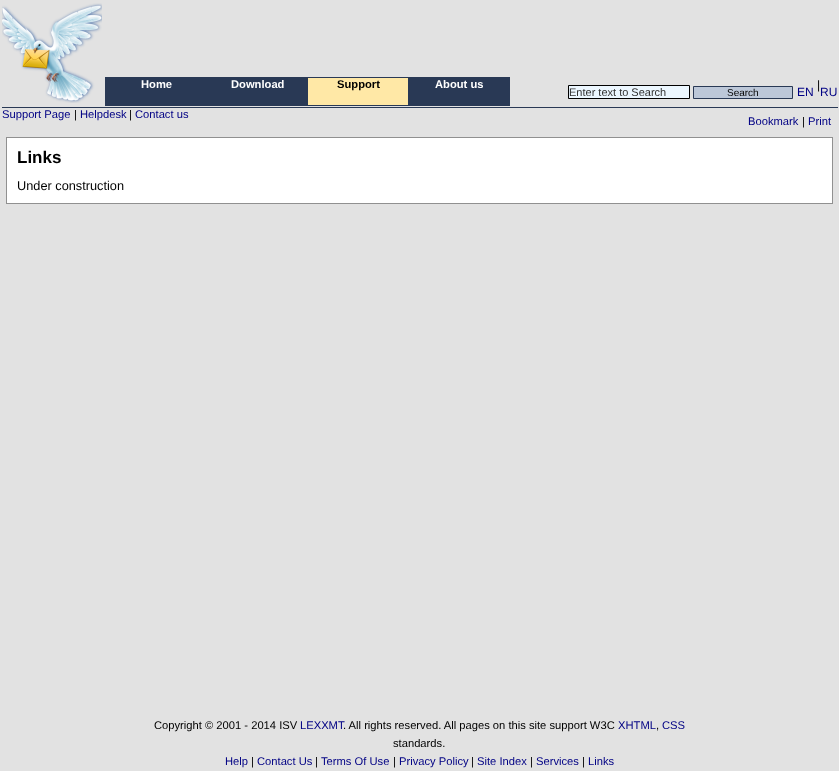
async function draw(canvas) {
  canvas.width = 839
  canvas.height = 771
  const ctx = canvas.getContext('2d')
  ctx.miterLimit = 4
  ctx.fontKerning = 'normal'
  async function loadImage(src) {
    const img = new Image()
    img.src = src
    await img.decode()
    return img
  }

  ctx.fillStyle = '#e2e2e2'
  ctx.fillRect(0, 0, 839, 771)
  ctx.drawImage(await loadImage('image0.png'), 2, 3, 100, 100)
  ctx.fillStyle = '#293955'
  ctx.fillRect(509, 77, 1, 29)
  ctx.fillRect(408, 77, 102, 1)
  ctx.fillRect(408, 105, 102, 1)
  ctx.fillRect(408, 77, 1, 29)
  ctx.fillRect(307, 77, 102, 1)
  ctx.fillRect(307, 105, 102, 1)
  ctx.fillRect(307, 77, 1, 29)
  ctx.fillRect(206, 77, 102, 1)
  ctx.fillRect(206, 105, 102, 1)
  ctx.fillRect(206, 77, 1, 29)
  ctx.fillRect(105, 77, 102, 1)
  ctx.fillRect(105, 105, 102, 1)
  ctx.fillRect(105, 77, 1, 29)
  ctx.fillRect(106, 78, 100, 27)
  ctx.font = 'bold 11.2px Liberation Sans'
  ctx.fillStyle = '#fff'
  ctx.fillText('Home', 141, 88)
  ctx.fillStyle = '#293955'
  ctx.fillRect(207, 78, 100, 27)
  ctx.fillStyle = '#fff'
  ctx.fillText('Download', 231, 88)
  ctx.fillStyle = '#ffe8a6'
  ctx.fillRect(308, 78, 100, 27)
  ctx.fillStyle = '#000'
  ctx.fillText('Support', 337, 88)
  ctx.fillStyle = '#293955'
  ctx.fillRect(409, 78, 100, 27)
  ctx.fillStyle = '#fff'
  ctx.fillText('About us', 435, 88)
  ctx.fillStyle = '#ecf7ff'
  ctx.beginPath()
  ctx.rect(568.5, 85.5, 121, 13)
  ctx.fill()
  ctx.strokeStyle = '#000'
  ctx.stroke()
  ctx.font = '11px Liberation Sans'
  ctx.fillStyle = '#333'
  ctx.fillText('Enter text to Search', 569, 96)
  ctx.fillStyle = '#bcc7d8'
  ctx.beginPath()
  ctx.rect(693.5, 86.5, 99, 12)
  ctx.fill()
  ctx.strokeStyle = '#293955'
  ctx.stroke()
  ctx.font = '10px Liberation Sans'
  ctx.fillStyle = '#000'
  ctx.fillText('Search', 727, 96)
  ctx.font = '12px Liberation Sans'
  ctx.fillStyle = '#000084'
  ctx.fillText('EN', 797, 96)
  ctx.fillStyle = '#000'
  ctx.fillText('|', 817, 89)
  ctx.fillStyle = '#000084'
  ctx.fillText('RU', 820, 96)
  ctx.fillStyle = '#293955'
  ctx.fillRect(2, 107, 836, 1)
  ctx.font = '11.2px Liberation Sans'
  ctx.fillStyle = '#000084'
  ctx.fillText('Support Page', 2, 118)
  ctx.fillStyle = '#000'
  ctx.fillText('|', 74, 118)
  ctx.fillStyle = '#000084'
  ctx.fillText('Helpdesk', 80, 118)
  ctx.fillStyle = '#000'
  ctx.fillText('|', 129, 118)
  ctx.fillStyle = '#000084'
  ctx.fillText('Contact us', 135, 118)
  ctx.fillText('Bookmark', 748, 125)
  ctx.fillStyle = '#000'
  ctx.fillText('|', 802, 125)
  ctx.fillStyle = '#000084'
  ctx.fillText('Print', 808, 125)
  ctx.fillStyle = '#fff'
  ctx.fillRect(7, 138, 825, 65)
  ctx.fillStyle = '#909090'
  ctx.fillRect(6, 137, 827, 1)
  ctx.fillRect(832, 137, 1, 67)
  ctx.fillRect(6, 203, 827, 1)
  ctx.fillRect(6, 137, 1, 67)
  ctx.font = 'bold 17px Liberation Sans'
  ctx.fillStyle = '#000'
  ctx.fillText('Links', 17, 163)
  ctx.font = '12.75px Liberation Sans'
  ctx.fillText('Under construction', 17, 190)
  ctx.font = '11.2px Liberation Sans'
  ctx.fillText('Copyright © 2001 - 2014 ISV', 154, 729)
  ctx.fillStyle = '#000084'
  ctx.fillText('LEXXMT', 300, 729)
  ctx.fillStyle = '#000'
  ctx.fillText('. All rights reserved. All pages on this site support W3C', 343, 729)
  ctx.fillStyle = '#000084'
  ctx.fillText('XHTML', 618, 729)
  ctx.fillStyle = '#000'
  ctx.fillText(',', 656, 729)
  ctx.fillStyle = '#000084'
  ctx.fillText('CSS', 662, 729)
  ctx.fillStyle = '#000'
  ctx.fillText('standards.', 393, 747)
  ctx.fillStyle = '#000084'
  ctx.fillText('Help', 225, 765)
  ctx.fillStyle = '#000'
  ctx.fillText('|', 251, 765)
  ctx.fillStyle = '#000084'
  ctx.fillText('Contact Us', 257, 765)
  ctx.fillStyle = '#000'
  ctx.fillText('|', 315, 765)
  ctx.fillStyle = '#000084'
  ctx.fillText('Terms Of Use', 321, 765)
  ctx.fillStyle = '#000'
  ctx.fillText('|', 393, 765)
  ctx.fillStyle = '#000084'
  ctx.fillText('Privacy Policy', 399, 765)
  ctx.fillStyle = '#000'
  ctx.fillText('|', 471, 765)
  ctx.fillStyle = '#000084'
  ctx.fillText('Site Index', 477, 765)
  ctx.fillStyle = '#000'
  ctx.fillText('|', 530, 765)
  ctx.fillStyle = '#000084'
  ctx.fillText('Services', 536, 765)
  ctx.fillStyle = '#000'
  ctx.fillText('|', 582, 765)
  ctx.fillStyle = '#000084'
  ctx.fillText('Links', 588, 765)
}

draw(document.querySelector('canvas'))
